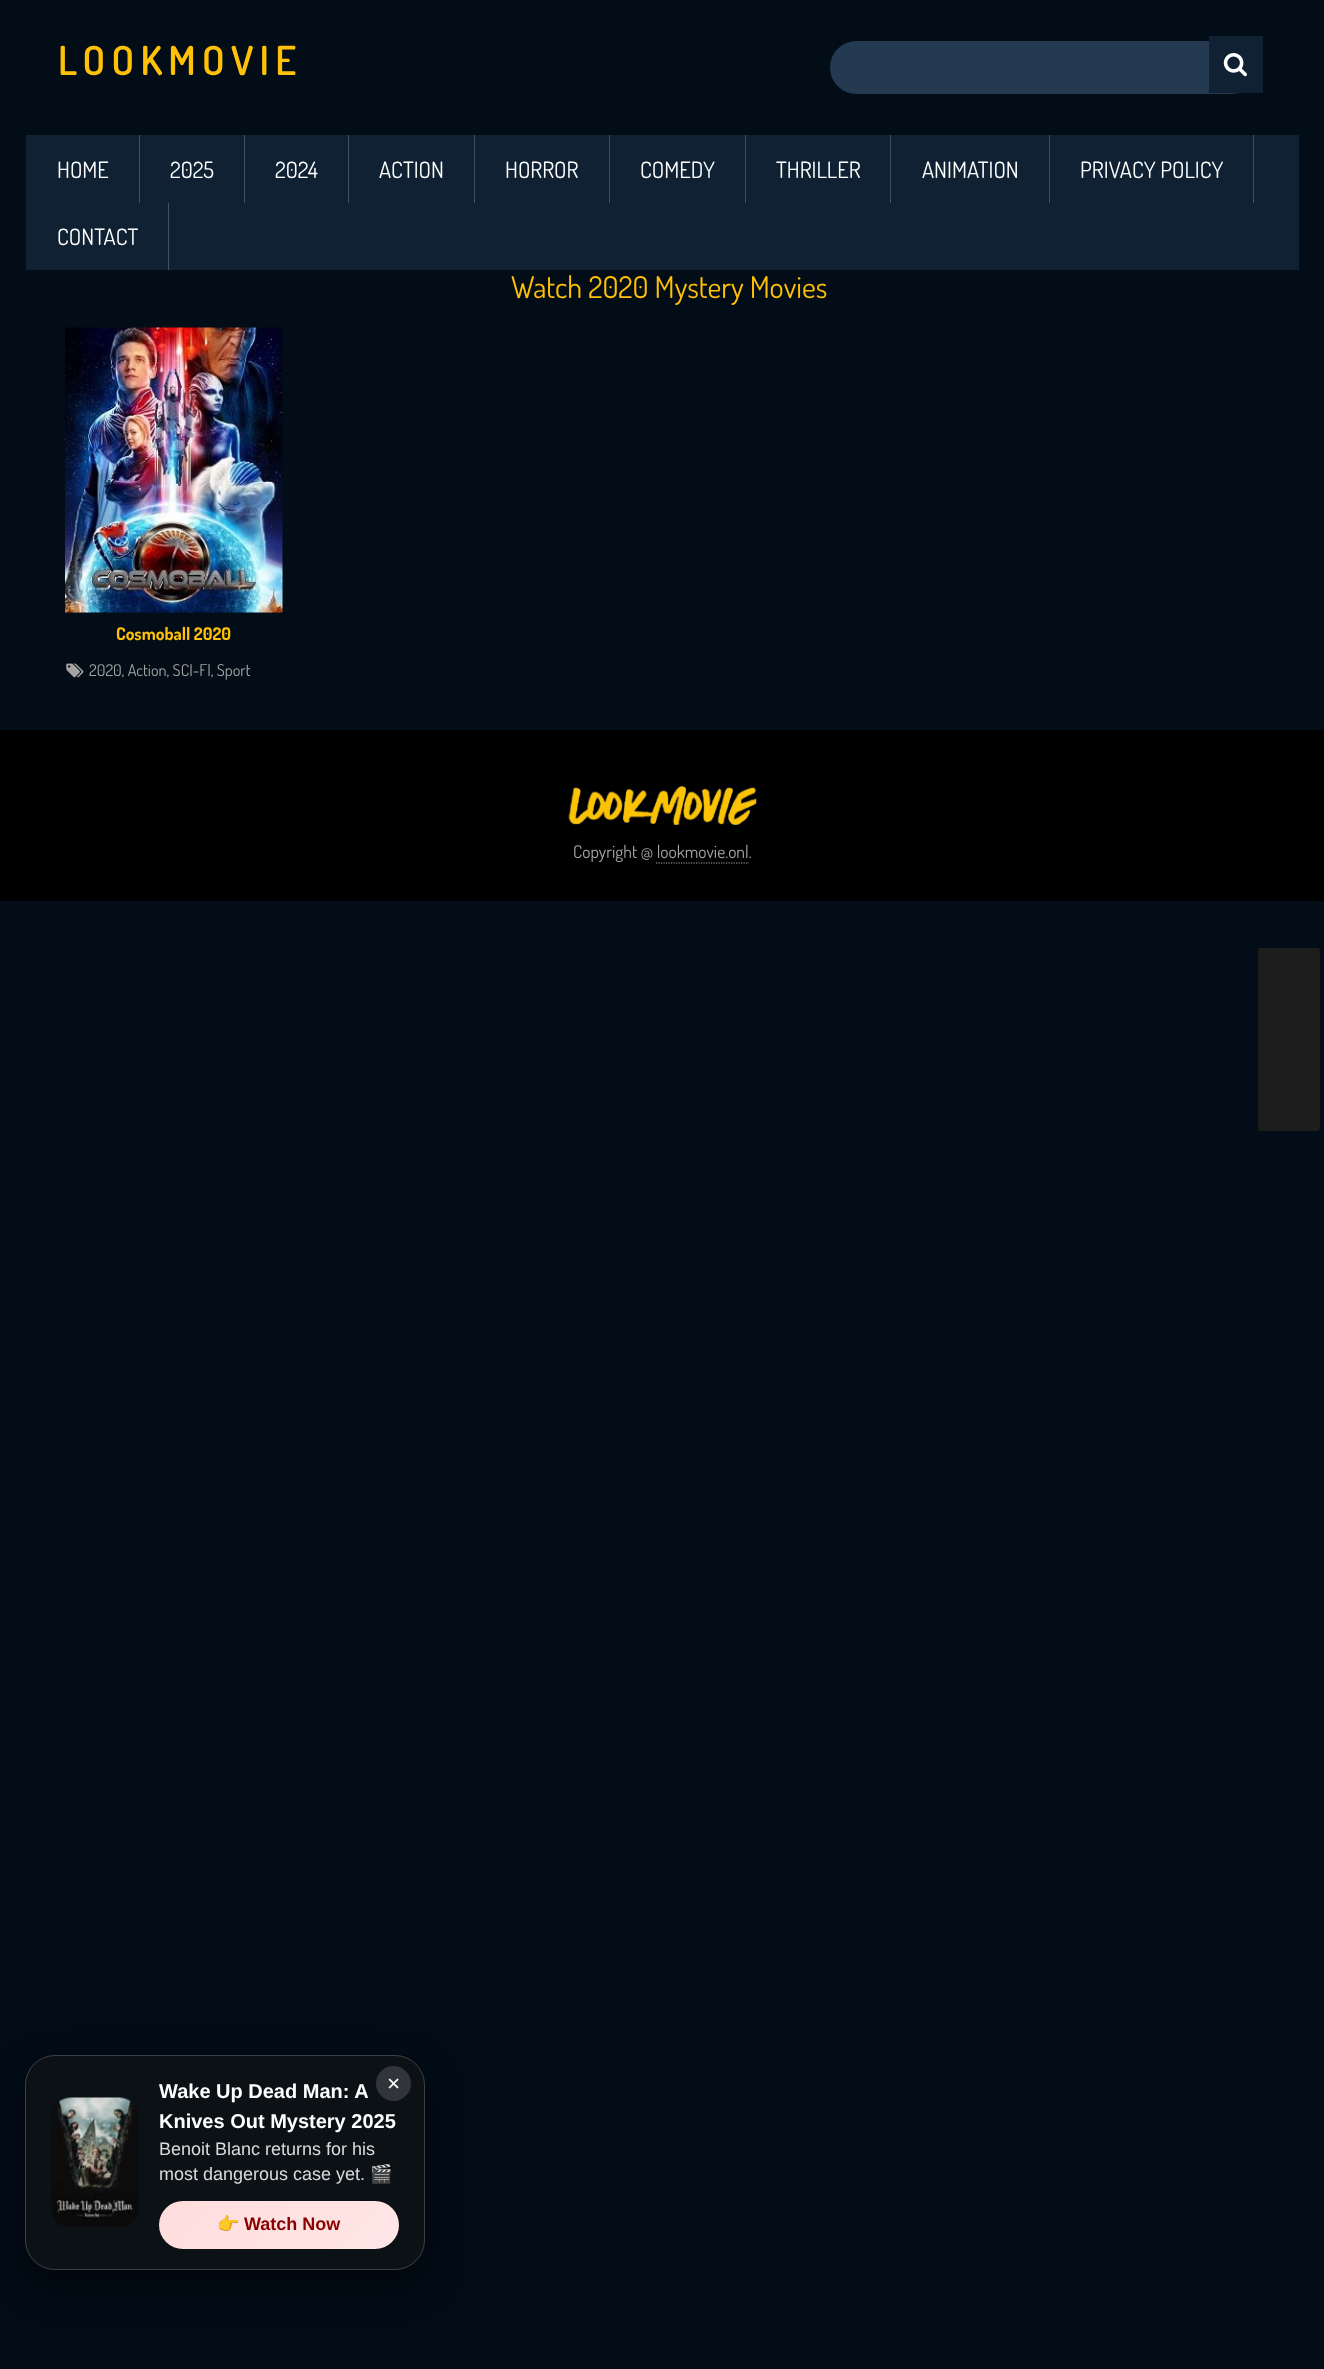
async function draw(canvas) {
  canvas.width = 1324
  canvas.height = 2369
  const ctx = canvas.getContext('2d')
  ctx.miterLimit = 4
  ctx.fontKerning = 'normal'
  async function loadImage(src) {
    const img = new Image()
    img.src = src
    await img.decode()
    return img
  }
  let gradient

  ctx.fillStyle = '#020d18'
  ctx.fillRect(0, 0, 1324, 2369)
  ctx.letterSpacing = '6.25px'
  ctx.font = '600 40px Dosis'
  ctx.fillStyle = '#ffc107'
  ctx.fillText('LOOKMOVIE', 58, 75)
  ctx.fillStyle = '#233a50'
  ctx.beginPath()
  ctx.roundRect(827.5, 38.5, 433, 58, 29)
  ctx.fill()
  ctx.strokeStyle = '#020d18'
  ctx.lineWidth = 5
  ctx.stroke()
  ctx.fillStyle = '#0f2133'
  ctx.fillRect(1209, 36, 54, 57)
  ctx.drawImage(await loadImage('image0.png'), 1223, 53, 24, 24)
  ctx.fillRect(26, 135, 1273, 135)
  ctx.fillStyle = '#445260'
  ctx.fillRect(139, 135, 1, 68)
  ctx.letterSpacing = '0px'
  ctx.font = '22.5px Dosis'
  ctx.fillStyle = '#fff'
  ctx.fillText('HOME', 57, 178)
  ctx.fillStyle = '#445260'
  ctx.fillRect(244, 135, 1, 68)
  ctx.fillStyle = '#fff'
  ctx.fillText('2025', 170, 178)
  ctx.fillStyle = '#445260'
  ctx.fillRect(348, 135, 1, 68)
  ctx.fillStyle = '#fff'
  ctx.fillText('2024', 275, 178)
  ctx.fillStyle = '#445260'
  ctx.fillRect(474, 135, 1, 68)
  ctx.fillStyle = '#fff'
  ctx.fillText('ACTION', 379, 178)
  ctx.fillStyle = '#445260'
  ctx.fillRect(609, 135, 1, 68)
  ctx.fillStyle = '#fff'
  ctx.fillText('HORROR', 505, 178)
  ctx.fillStyle = '#445260'
  ctx.fillRect(745, 135, 1, 68)
  ctx.fillStyle = '#fff'
  ctx.fillText('COMEDY', 640, 178)
  ctx.fillStyle = '#445260'
  ctx.fillRect(890, 135, 1, 68)
  ctx.fillStyle = '#fff'
  ctx.fillText('THRILLER', 776, 178)
  ctx.fillStyle = '#445260'
  ctx.fillRect(1049, 135, 1, 68)
  ctx.fillStyle = '#fff'
  ctx.fillText('ANIMATION', 922, 178)
  ctx.fillStyle = '#445260'
  ctx.fillRect(1253, 135, 1, 68)
  ctx.fillStyle = '#fff'
  ctx.fillText('PRIVACY POLICY', 1080, 178)
  ctx.fillStyle = '#445260'
  ctx.fillRect(168, 203, 1, 67)
  ctx.fillStyle = '#fff'
  ctx.fillText('CONTACT', 57, 245)
  ctx.fillStyle = '#1d1d1d'
  ctx.beginPath()
  ctx.moveTo(1259, 948)
  ctx.lineTo(1318, 948)
  ctx.bezierCurveTo(1319, 948, 1320, 950, 1320, 953)
  ctx.lineTo(1320, 1126)
  ctx.bezierCurveTo(1320, 1129, 1319, 1131, 1318, 1131)
  ctx.lineTo(1259, 1131)
  ctx.bezierCurveTo(1258, 1131, 1258, 1129, 1258, 1126)
  ctx.lineTo(1258, 953)
  ctx.bezierCurveTo(1258, 950, 1258, 948, 1259, 948)
  ctx.closePath()
  ctx.fill()
  ctx.font = '30px Dosis'
  ctx.fillStyle = '#ffc107'
  ctx.fillText('Watch 2020 Mystery Movies', 511, 298)
  ctx.drawImage(await loadImage('image1.png'), 65, 327, 218, 286)
  ctx.font = 'bold 17.5px Dosis'
  ctx.fillText('Cosmoball 2020', 116, 640)
  ctx.drawImage(await loadImage('image2.png'), 66, 663, 18, 15)
  ctx.font = '16.25px Dosis'
  ctx.fillStyle = '#a4a4a4'
  ctx.fillText('2020, Action, SCI-FI, Sport', 89, 676)
  ctx.save()
  ctx.beginPath()
  ctx.moveTo(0, 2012)
  ctx.lineTo(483, 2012)
  ctx.lineTo(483, 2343)
  ctx.lineTo(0, 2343)
  ctx.closePath()
  ctx.moveTo(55, 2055)
  ctx.lineTo(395, 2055)
  ctx.bezierCurveTo(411.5, 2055, 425, 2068.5, 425, 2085)
  ctx.lineTo(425, 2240)
  ctx.bezierCurveTo(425, 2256.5, 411.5, 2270, 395, 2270)
  ctx.lineTo(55, 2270)
  ctx.bezierCurveTo(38.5, 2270, 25, 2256.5, 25, 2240)
  ctx.lineTo(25, 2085)
  ctx.bezierCurveTo(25, 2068.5, 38.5, 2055, 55, 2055)
  ctx.closePath()
  ctx.clip('evenodd')
  ctx.fillStyle = '#00000099'
  ctx.filter = 'blur(19px)'
  ctx.beginPath()
  ctx.roundRect(25, 2070, 400, 215, 30)
  ctx.fill()
  ctx.filter = 'none'
  ctx.restore()
  ctx.fillStyle = '#14141499'
  ctx.beginPath()
  ctx.roundRect(25, 2055, 400, 215, 30)
  ctx.fill()
  ctx.beginPath()
  ctx.roundRect(25.5, 2055.5, 399, 214, 29.5)
  ctx.strokeStyle = '#ffffff33'
  ctx.lineWidth = 1
  ctx.stroke()
  ctx.fillStyle = '#313539'
  ctx.beginPath()
  ctx.arc(393.5, 2083.5, 17.5, 0, 2 * Math.PI)
  ctx.fill()
  ctx.font = '22.5px Liberation Sans'
  ctx.fillStyle = '#fff'
  ctx.fillText('×', 387, 2091)
  ctx.drawImage(await loadImage('image3.png'), 51, 2097, 88, 130)
  ctx.font = 'bold 20px Liberation Sans'
  ctx.fillText('Wake Up Dead Man: A', 159, 2098)
  ctx.fillText('Knives Out Mystery 2025', 159, 2128)
  ctx.font = '18px Liberation Sans'
  ctx.fillStyle = '#dbdbdc'
  ctx.fillText('Benoit Blanc returns for his', 159, 2155)
  ctx.fillText('most dangerous case yet.', 159, 2180)
  ctx.font = '18px Noto Color Emoji'
  ctx.fillText('🎬', 370, 2180)
  gradient = ctx.createLinearGradient(207, 2153, 351, 2297)
  gradient.addColorStop(0, '#fdd')
  gradient.addColorStop(1, '#ffe6e6')
  ctx.fillStyle = gradient
  ctx.beginPath()
  ctx.roundRect(159, 2201, 240, 48, 24)
  ctx.fill()
  ctx.font = 'bold 18px Noto Color Emoji'
  ctx.fillStyle = '#8b0000'
  ctx.fillText('👉', 217, 2230)
  ctx.font = 'bold 18px Liberation Sans'
  ctx.fillText('Watch Now', 244, 2230)
  ctx.fillStyle = '#000'
  ctx.fillRect(0, 730, 1324, 171)
  ctx.drawImage(await loadImage('image4.png'), 568, 786, 189, 39)
  ctx.font = '17.5px Dosis'
  ctx.fillStyle = '#a4a4a4'
  ctx.fillText('Copyright @ lookmovie.onl.', 573, 858)
  ctx.beginPath()
  ctx.moveTo(656, 863)
  ctx.lineTo(749, 863)
  ctx.strokeStyle = '#a4a4a4'
  ctx.lineWidth = 1.2
  ctx.setLineDash([1.25, 1.25])
  ctx.stroke()
}

draw(document.querySelector('canvas'))
